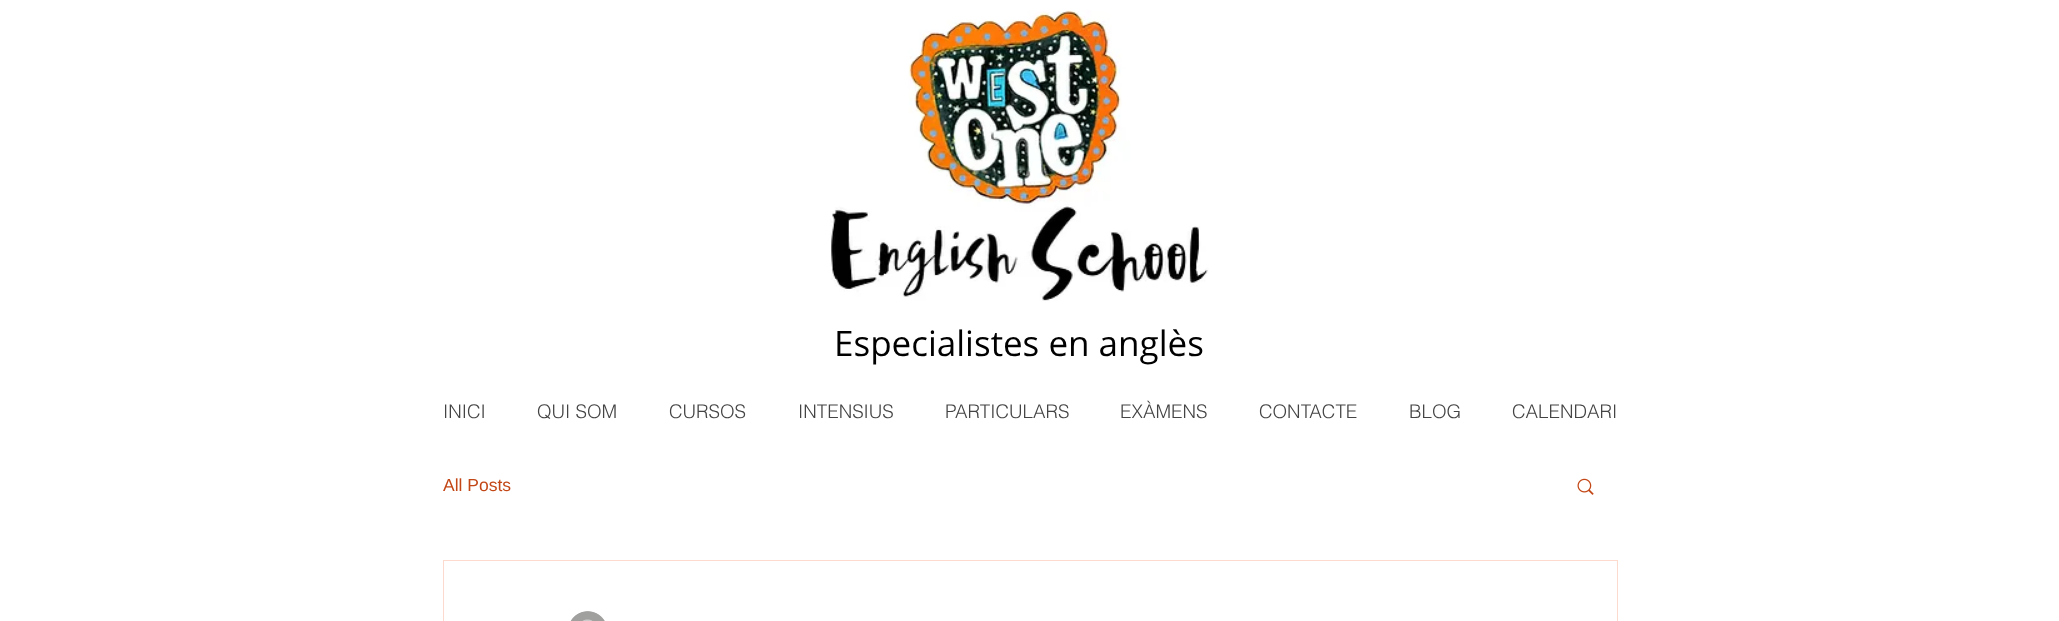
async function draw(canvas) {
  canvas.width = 2059
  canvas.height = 621
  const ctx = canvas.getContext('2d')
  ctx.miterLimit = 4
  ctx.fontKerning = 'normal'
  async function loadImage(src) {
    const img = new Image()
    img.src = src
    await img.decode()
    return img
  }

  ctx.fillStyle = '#fff'
  ctx.fillRect(0, 0, 2059, 621)
  ctx.drawImage(await loadImage('image0.png'), 830, 10, 379, 291)
  ctx.font = '35px Open Sans'
  ctx.fillStyle = '#000'
  ctx.fillText('Especialistes en anglès', 834, 356)
  ctx.font = '300 18.75px helvetica'
  ctx.fillStyle = '#444'
  ctx.fillText('INICI', 443, 418)
  ctx.fillText('QUI SOM', 537, 418)
  ctx.fillText('CURSOS', 669, 418)
  ctx.fillText('INTENSIUS', 798, 418)
  ctx.fillText('PARTICULARS', 945, 418)
  ctx.fillText('EXÀMENS', 1120, 418)
  ctx.fillText('CONTACTE', 1259, 418)
  ctx.fillText('BLOG', 1409, 418)
  ctx.fillText('CALENDARI', 1512, 418)
  ctx.font = '17.5px Liberation Sans'
  ctx.fillStyle = '#c34716'
  ctx.fillText('All Posts', 443, 491)
  ctx.drawImage(await loadImage('image1.png'), 1577, 478, 17, 17)
  ctx.strokeStyle = '#fcdbce'
  ctx.strokeRect(443.5, 560.5, 1174, 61)
  ctx.drawImage(await loadImage('image2.png'), 570, 611, 35, 10)
}

draw(document.querySelector('canvas'))
